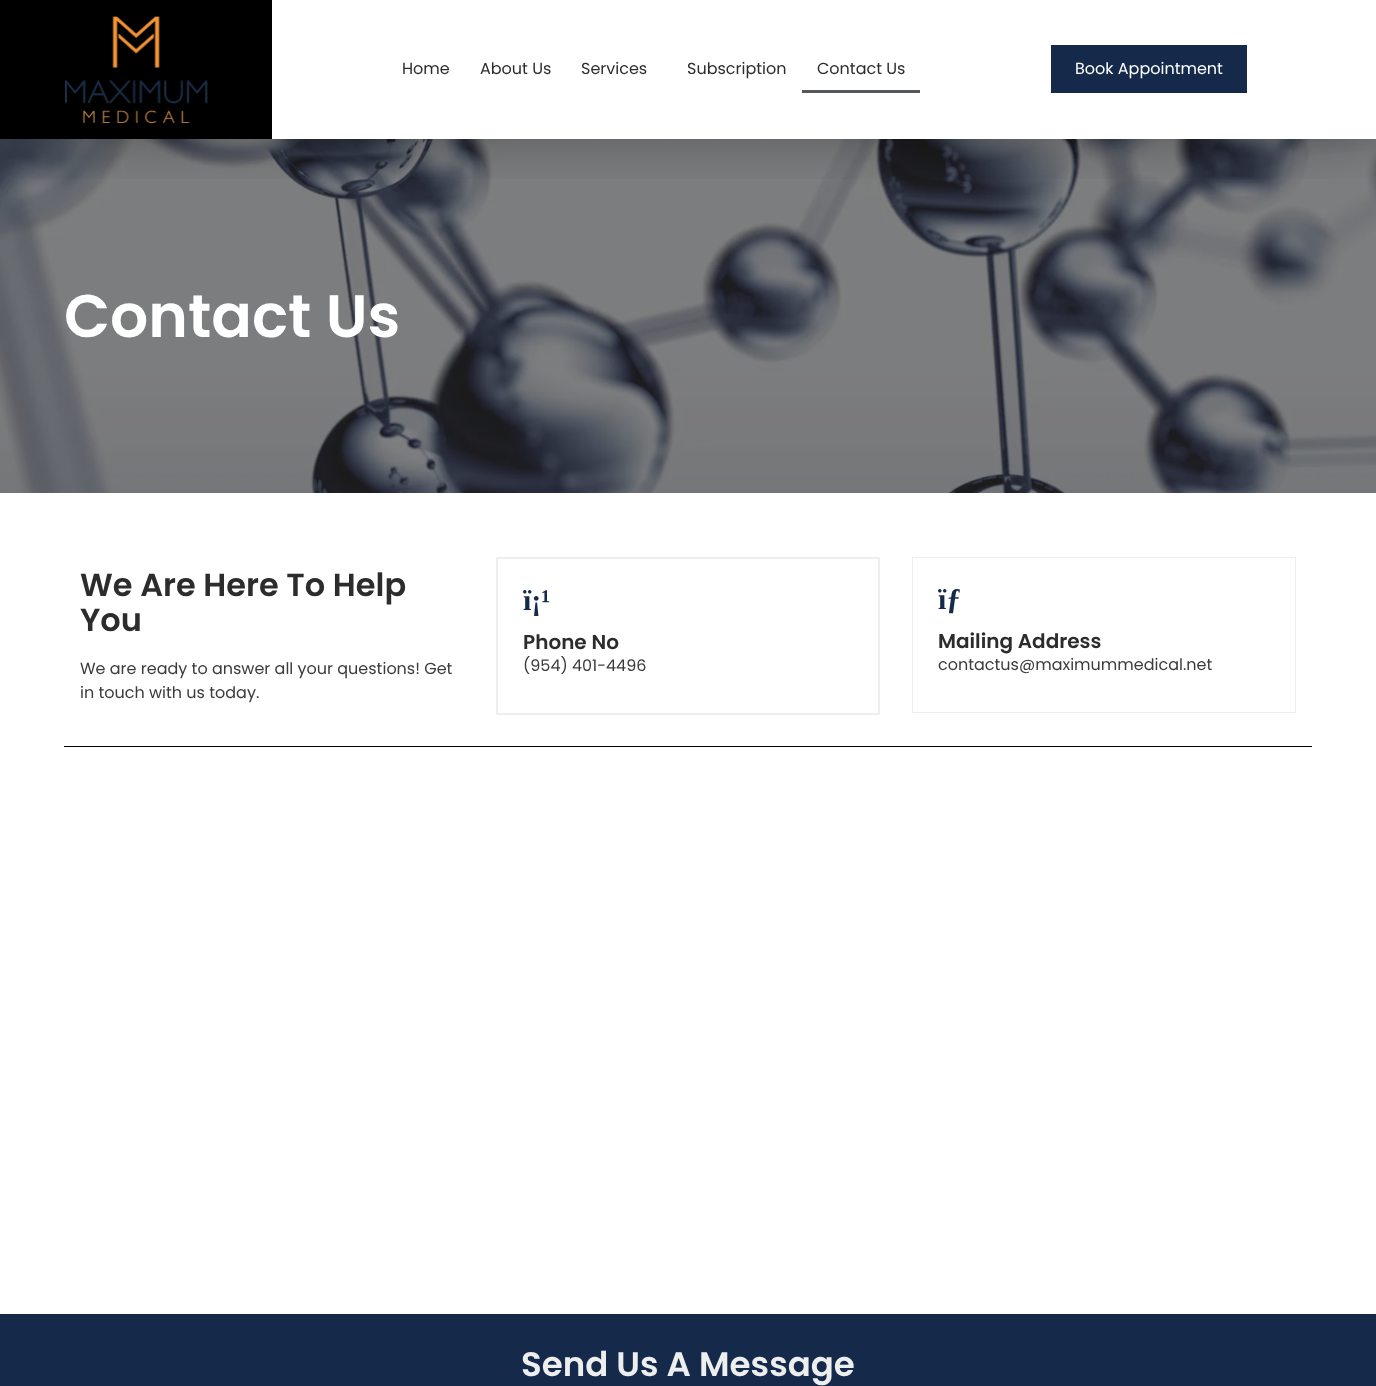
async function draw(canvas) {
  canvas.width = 1376
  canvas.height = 1386
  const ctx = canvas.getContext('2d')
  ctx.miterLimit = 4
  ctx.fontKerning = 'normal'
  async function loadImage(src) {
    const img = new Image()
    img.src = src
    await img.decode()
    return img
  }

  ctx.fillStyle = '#fff'
  ctx.fillRect(0, 0, 1376, 1386)
  ctx.drawImage(await loadImage('image1.png'), 0, 139, 1376, 354)
  ctx.save()
  ctx.beginPath()
  ctx.rect(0, 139, 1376, 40)
  ctx.clip()
  ctx.fillStyle = '#00000040'
  ctx.filter = 'blur(25px)'
  ctx.beginPath()
  ctx.rect(5, 15, 1366, 129)
  ctx.fill()
  ctx.filter = 'none'
  ctx.restore()
  ctx.fillStyle = '#000'
  ctx.fillRect(0, 0, 272, 139)
  ctx.drawImage(await loadImage('image0.png'), 65, 16, 143, 107)
  ctx.font = '16px Poppins'
  ctx.fillStyle = '#2c2c2c'
  ctx.fillText('Home', 402, 74)
  ctx.fillText('About Us', 480, 74)
  ctx.fillText('Services', 581, 74)
  ctx.fillText('Subscription', 687, 74)
  ctx.fillText('Contact Us', 817, 74)
  ctx.fillStyle = '#55595c'
  ctx.fillRect(802, 90, 118, 3)
  ctx.fillStyle = '#152a4b'
  ctx.fillRect(1051, 45, 196, 48)
  ctx.fillStyle = '#fff'
  ctx.fillText('Book Appointment', 1075, 74)
  ctx.font = '600 60px Poppins'
  ctx.fillText('Contact Us', 64, 337)
  ctx.font = '600 32px Poppins'
  ctx.fillStyle = '#2c2c2c'
  ctx.fillText('We Are Here To Help', 80, 596)
  ctx.fillText('You', 80, 631)
  ctx.font = '16px Poppins'
  ctx.fillStyle = '#3b3b3b'
  ctx.fillText('We are ready to answer all your questions! Get', 80, 674)
  ctx.fillText('in touch with us today.', 80, 698)
  ctx.strokeStyle = '#edeeee'
  ctx.lineWidth = 2
  ctx.strokeRect(497, 558, 382, 156)
  ctx.font = 'bold 30px Liberation Serif'
  ctx.fillStyle = '#152a4b'
  ctx.fillText('ï¡¹', 523, 610)
  ctx.font = '600 20px Poppins'
  ctx.fillStyle = '#2c2c2c'
  ctx.fillText('Phone No', 523, 649)
  ctx.font = '16px Poppins'
  ctx.fillStyle = '#3b3b3b'
  ctx.fillText('(954) 401-4496', 523, 671)
  ctx.lineWidth = 1
  ctx.strokeRect(912.5, 557.5, 383, 155)
  ctx.font = 'bold 30px Liberation Serif'
  ctx.fillStyle = '#152a4b'
  ctx.fillText('ïƒ', 938, 609)
  ctx.font = '600 20px Poppins'
  ctx.fillStyle = '#2c2c2c'
  ctx.fillText('Mailing Address', 938, 648)
  ctx.font = '16px Poppins'
  ctx.fillStyle = '#3b3b3b'
  ctx.fillText('contactus@maximummedical.net', 938, 670)
  ctx.fillStyle = '#000'
  ctx.fillRect(64, 746, 1248, 1)
  ctx.fillStyle = '#152a4b'
  ctx.fillRect(0, 1314, 1376, 72)
  ctx.font = '600 34px Poppins'
  ctx.fillStyle = '#edeeee'
  ctx.fillText('Send Us A Message', 521, 1376)
}

draw(document.querySelector('canvas'))
